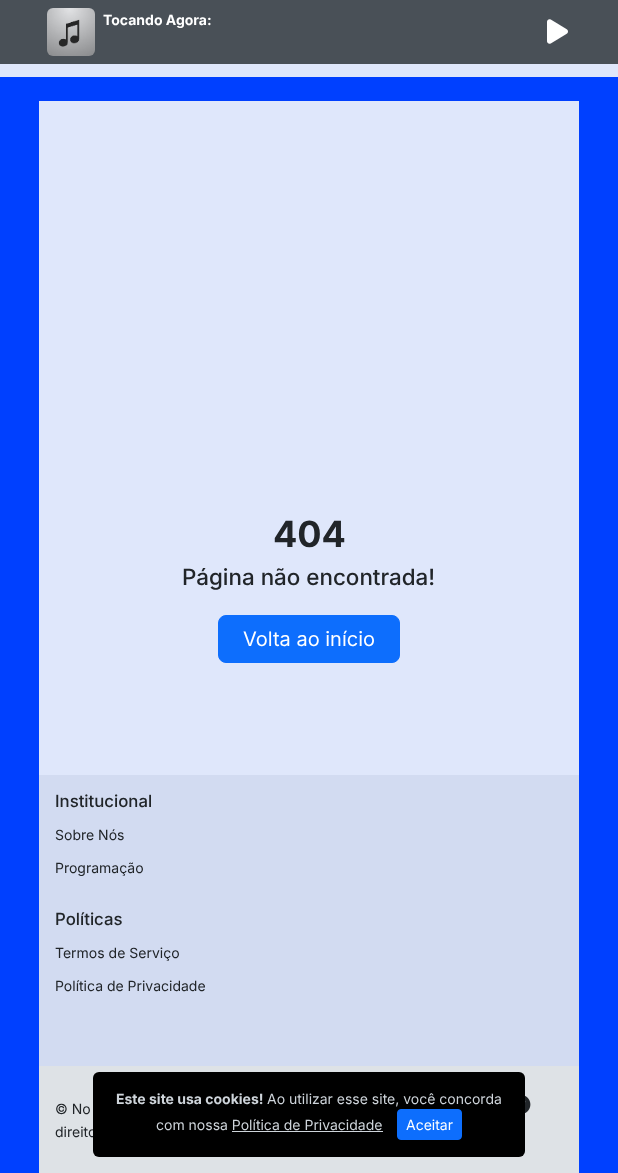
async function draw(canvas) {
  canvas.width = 618
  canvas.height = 1173
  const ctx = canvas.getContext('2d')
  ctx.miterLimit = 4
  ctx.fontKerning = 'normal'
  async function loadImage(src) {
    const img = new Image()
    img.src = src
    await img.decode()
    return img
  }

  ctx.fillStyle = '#0040ff'
  ctx.fillRect(0, 0, 618, 1173)
  ctx.fillStyle = '#495057'
  ctx.fillRect(0, 0, 618, 64)
  ctx.drawImage(await loadImage('image0.png'), 47, 8, 48, 48)
  ctx.font = 'bold 14px Inter'
  ctx.fillStyle = '#fff'
  ctx.fillText('Tocando Agora:', 103, 25)
  ctx.drawImage(await loadImage('image1.png'), 547, 19, 21, 25)
  ctx.fillStyle = '#dfe7fb'
  ctx.fillRect(0, 64, 618, 13)
  ctx.fillRect(39, 101, 540, 674)
  ctx.font = 'bold 36px Inter'
  ctx.fillStyle = '#212529'
  ctx.fillText('404', 273, 547)
  ctx.font = '500 22.4px Inter'
  ctx.fillText('Página não encontrada!', 182, 585)
  ctx.fillStyle = '#0d6efd'
  ctx.beginPath()
  ctx.roundRect(218.5, 615.5, 181, 47, 7.5)
  ctx.fill()
  ctx.strokeStyle = '#0d6efd'
  ctx.stroke()
  ctx.font = '20px Inter'
  ctx.fillStyle = '#fff'
  ctx.fillText('Volta ao início', 243, 646)
  ctx.fillStyle = '#d2dbf1'
  ctx.fillRect(39, 775, 540, 291)
  ctx.font = '500 16.75px Inter'
  ctx.fillStyle = '#212529'
  ctx.fillText('Institucional', 55, 807)
  ctx.font = '14px Inter'
  ctx.fillText('Sobre Nós', 55, 840)
  ctx.fillText('Programação', 55, 873)
  ctx.font = '500 16.75px Inter'
  ctx.fillText('Políticas', 55, 925)
  ctx.font = '14px Inter'
  ctx.fillText('Termos de Serviço', 55, 958)
  ctx.fillText('Política de Privacidade', 55, 991)
  ctx.fillStyle = '#dee2e6'
  ctx.fillRect(39, 1066, 540, 107)
  ctx.fillStyle = '#212529'
  ctx.fillText('© No', 55, 1114)
  ctx.fillText('direito', 55, 1137)
  ctx.drawImage(await loadImage('image2.png'), 525, 1096, 6, 17)
  ctx.fillStyle = '#000'
  ctx.beginPath()
  ctx.roundRect(93, 1072, 432, 85, 6)
  ctx.fill()
  ctx.font = 'bold 14px Inter'
  ctx.fillStyle = '#ced4da'
  ctx.fillText('Este site usa cookies!', 116, 1104)
  ctx.font = '14px Inter'
  ctx.fillText('Ao utilizar esse site, você concorda', 267, 1104)
  ctx.fillText('com nossa Política de Privacidade', 156, 1130)
  ctx.fillStyle = '#0d6efd'
  ctx.beginPath()
  ctx.roundRect(397.5, 1109.5, 64, 30, 3.5)
  ctx.fill()
  ctx.stroke()
  ctx.fillStyle = '#fff'
  ctx.fillText('Aceitar', 406, 1130)
  ctx.fillStyle = '#ced4da'
  ctx.fillRect(232, 1131, 151, 1)
}

draw(document.querySelector('canvas'))
